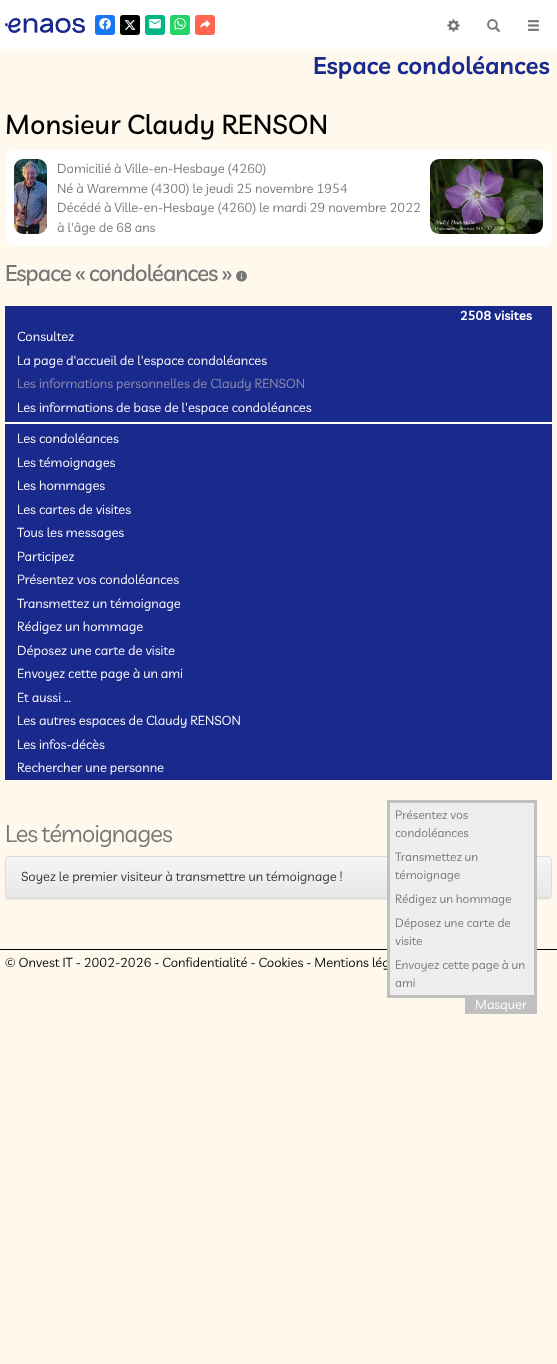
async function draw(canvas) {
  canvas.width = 557
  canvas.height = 1364
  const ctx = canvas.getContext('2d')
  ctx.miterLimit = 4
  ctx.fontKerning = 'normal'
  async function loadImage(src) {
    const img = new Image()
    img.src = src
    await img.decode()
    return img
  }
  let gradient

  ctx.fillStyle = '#fff8ed'
  ctx.fillRect(0, 0, 557, 1364)
  ctx.fillStyle = '#fff'
  ctx.fillRect(0, 0, 557, 49)
  ctx.drawImage(await loadImage('image0.png'), 5, 17, 80, 16)
  ctx.drawImage(await loadImage('image1.png'), 447, 19, 13, 13)
  ctx.drawImage(await loadImage('image2.png'), 487, 19, 13, 13)
  ctx.drawImage(await loadImage('image3.png'), 528, 20, 11, 11)
  ctx.fillStyle = '#1877f2'
  ctx.beginPath()
  ctx.roundRect(95, 15, 20, 20, 3)
  ctx.fill()
  ctx.drawImage(await loadImage('image4.png'), 99, 18, 12, 12)
  ctx.fillStyle = '#000'
  ctx.beginPath()
  ctx.roundRect(120, 15, 20, 20, 3)
  ctx.fill()
  ctx.drawImage(await loadImage('image5.png'), 124, 20, 12, 10)
  ctx.fillStyle = '#00b685'
  ctx.beginPath()
  ctx.roundRect(145, 15, 20, 20, 3)
  ctx.fill()
  ctx.drawImage(await loadImage('image6.png'), 149, 19, 12, 10)
  ctx.fillStyle = '#25d366'
  ctx.beginPath()
  ctx.roundRect(170, 15, 20, 20, 3)
  ctx.fill()
  ctx.drawImage(await loadImage('image7.png'), 174, 17, 12, 13)
  ctx.fillStyle = '#ff6550'
  ctx.beginPath()
  ctx.roundRect(195, 15, 20, 20, 3)
  ctx.fill()
  ctx.drawImage(await loadImage('image8.png'), 199, 19, 12, 10)
  ctx.font = '600 24px Livvic'
  ctx.fillStyle = '#1a298c'
  ctx.fillText('Espace condoléances', 313, 74)
  ctx.font = '500 27px Livvic'
  ctx.fillStyle = '#000'
  ctx.fillText('Monsieur Claudy RENSON', 5, 134)
  ctx.fillStyle = '#fff'
  ctx.beginPath()
  ctx.roundRect(5, 150, 547, 96, 9)
  ctx.fill()
  ctx.drawImage(await loadImage('image9.png'), 14, 159, 33, 75)
  ctx.font = '13px Livvic'
  ctx.fillStyle = '#777'
  ctx.fillText('Domicilié à Ville-en-Hesbaye (4260)', 57, 173)
  ctx.fillText('Né à Waremme (4300) le jeudi 25 novembre 1954', 57, 193)
  ctx.fillText('Décédé à Ville-en-Hesbaye (4260) le mardi 29 novembre 2022', 57, 212)
  ctx.fillText('à l\'âge de 68 ans', 57, 232)
  ctx.drawImage(await loadImage('image10.png'), 430, 159, 113, 75)
  ctx.letterSpacing = '-1px'
  ctx.font = '500 22.5px Livvic'
  ctx.fillText('Espace « condoléances »', 5, 281)
  ctx.drawImage(await loadImage('image11.png'), 236, 270, 11, 12)
  ctx.fillStyle = '#1a298c'
  ctx.fillRect(5, 306, 547, 474)
  ctx.letterSpacing = '0px'
  ctx.font = '600 13px Livvic'
  ctx.fillStyle = '#fff'
  ctx.fillText('2508 visites', 460, 320)
  ctx.font = '13px Livvic'
  ctx.fillText('Consultez', 17, 341)
  ctx.fillText('La page d\'accueil de l\'espace condoléances', 17, 365)
  ctx.fillStyle = '#8e92b0'
  ctx.fillText('Les informations personnelles de Claudy RENSON', 17, 388)
  ctx.fillStyle = '#fff'
  ctx.fillText('Les informations de base de l\'espace condoléances', 17, 412)
  ctx.fillRect(5, 422, 547, 2)
  ctx.fillText('Les condoléances', 17, 443)
  ctx.fillText('Les témoignages', 17, 467)
  ctx.fillText('Les hommages', 17, 490)
  ctx.fillText('Les cartes de visites', 17, 514)
  ctx.fillText('Tous les messages', 17, 537)
  ctx.fillText('Participez', 17, 561)
  ctx.fillText('Présentez vos condoléances', 17, 584)
  ctx.fillText('Transmettez un témoignage', 17, 608)
  ctx.fillText('Rédigez un hommage', 17, 631)
  ctx.fillText('Déposez une carte de visite', 17, 655)
  ctx.fillText('Envoyez cette page à un ami', 17, 678)
  ctx.fillText('Et aussi ...', 17, 702)
  ctx.fillText('Les autres espaces de Claudy RENSON', 17, 725)
  ctx.fillText('Les infos-décès', 17, 749)
  ctx.fillText('Rechercher une personne', 17, 772)
  ctx.letterSpacing = '-1px'
  ctx.font = '24px Livvic'
  ctx.fillStyle = '#777'
  ctx.fillText('Les témoignages', 5, 842)
  ctx.fillStyle = '#0000000d'
  ctx.filter = 'blur(1px)'
  ctx.beginPath()
  ctx.roundRect(5, 857, 547, 43, 4)
  ctx.fill()
  ctx.filter = 'none'
  ctx.beginPath()
  ctx.roundRect(5.5, 856.5, 546, 42, 3.5)
  ctx.strokeStyle = '#ddd'
  ctx.stroke()
  gradient = ctx.createLinearGradient(279, 857, 279, 897)
  gradient.addColorStop(0, '#f5f5f5')
  gradient.addColorStop(1, '#e8e8e8')
  ctx.fillStyle = gradient
  ctx.beginPath()
  ctx.roundRect(6, 857, 545, 40, [3, 3, 0, 0])
  ctx.fill()
  ctx.fillStyle = '#ddd'
  ctx.fillRect(6, 897, 545, 1)
  ctx.fillStyle = '#000'
  ctx.fillRect(0, 949, 557, 1)
  ctx.letterSpacing = '0px'
  ctx.font = '13px Livvic'
  ctx.fillText('© Onvest IT - 2002-2026 - Confidentialité - Cookies - Mentions lég', 5, 967)
  ctx.fillStyle = '#c0c0c0'
  ctx.fillRect(387, 800, 150, 198)
  ctx.fillStyle = '#eee'
  ctx.fillRect(390, 803, 144, 192)
  ctx.font = '12px Livvic'
  ctx.fillStyle = '#777'
  ctx.fillText('Présentez vos', 395, 819)
  ctx.fillText('condoléances', 395, 837)
  ctx.fillText('Transmettez un', 395, 861)
  ctx.fillText('témoignage', 395, 879)
  ctx.fillText('Rédigez un hommage', 395, 903)
  ctx.fillText('Déposez une carte de', 395, 927)
  ctx.fillText('visite', 395, 945)
  ctx.fillText('Envoyez cette page à un', 395, 969)
  ctx.fillText('ami', 395, 987)
  ctx.fillStyle = '#c0c0c0'
  ctx.fillRect(465, 998, 72, 16)
  ctx.font = '13px Livvic'
  ctx.fillStyle = '#fff'
  ctx.fillText('Masquer', 475, 1009)
  ctx.fillStyle = '#333'
  ctx.fillText('Soyez le premier visiteur à transmettre un témoignage !', 21, 881)
}

draw(document.querySelector('canvas'))
